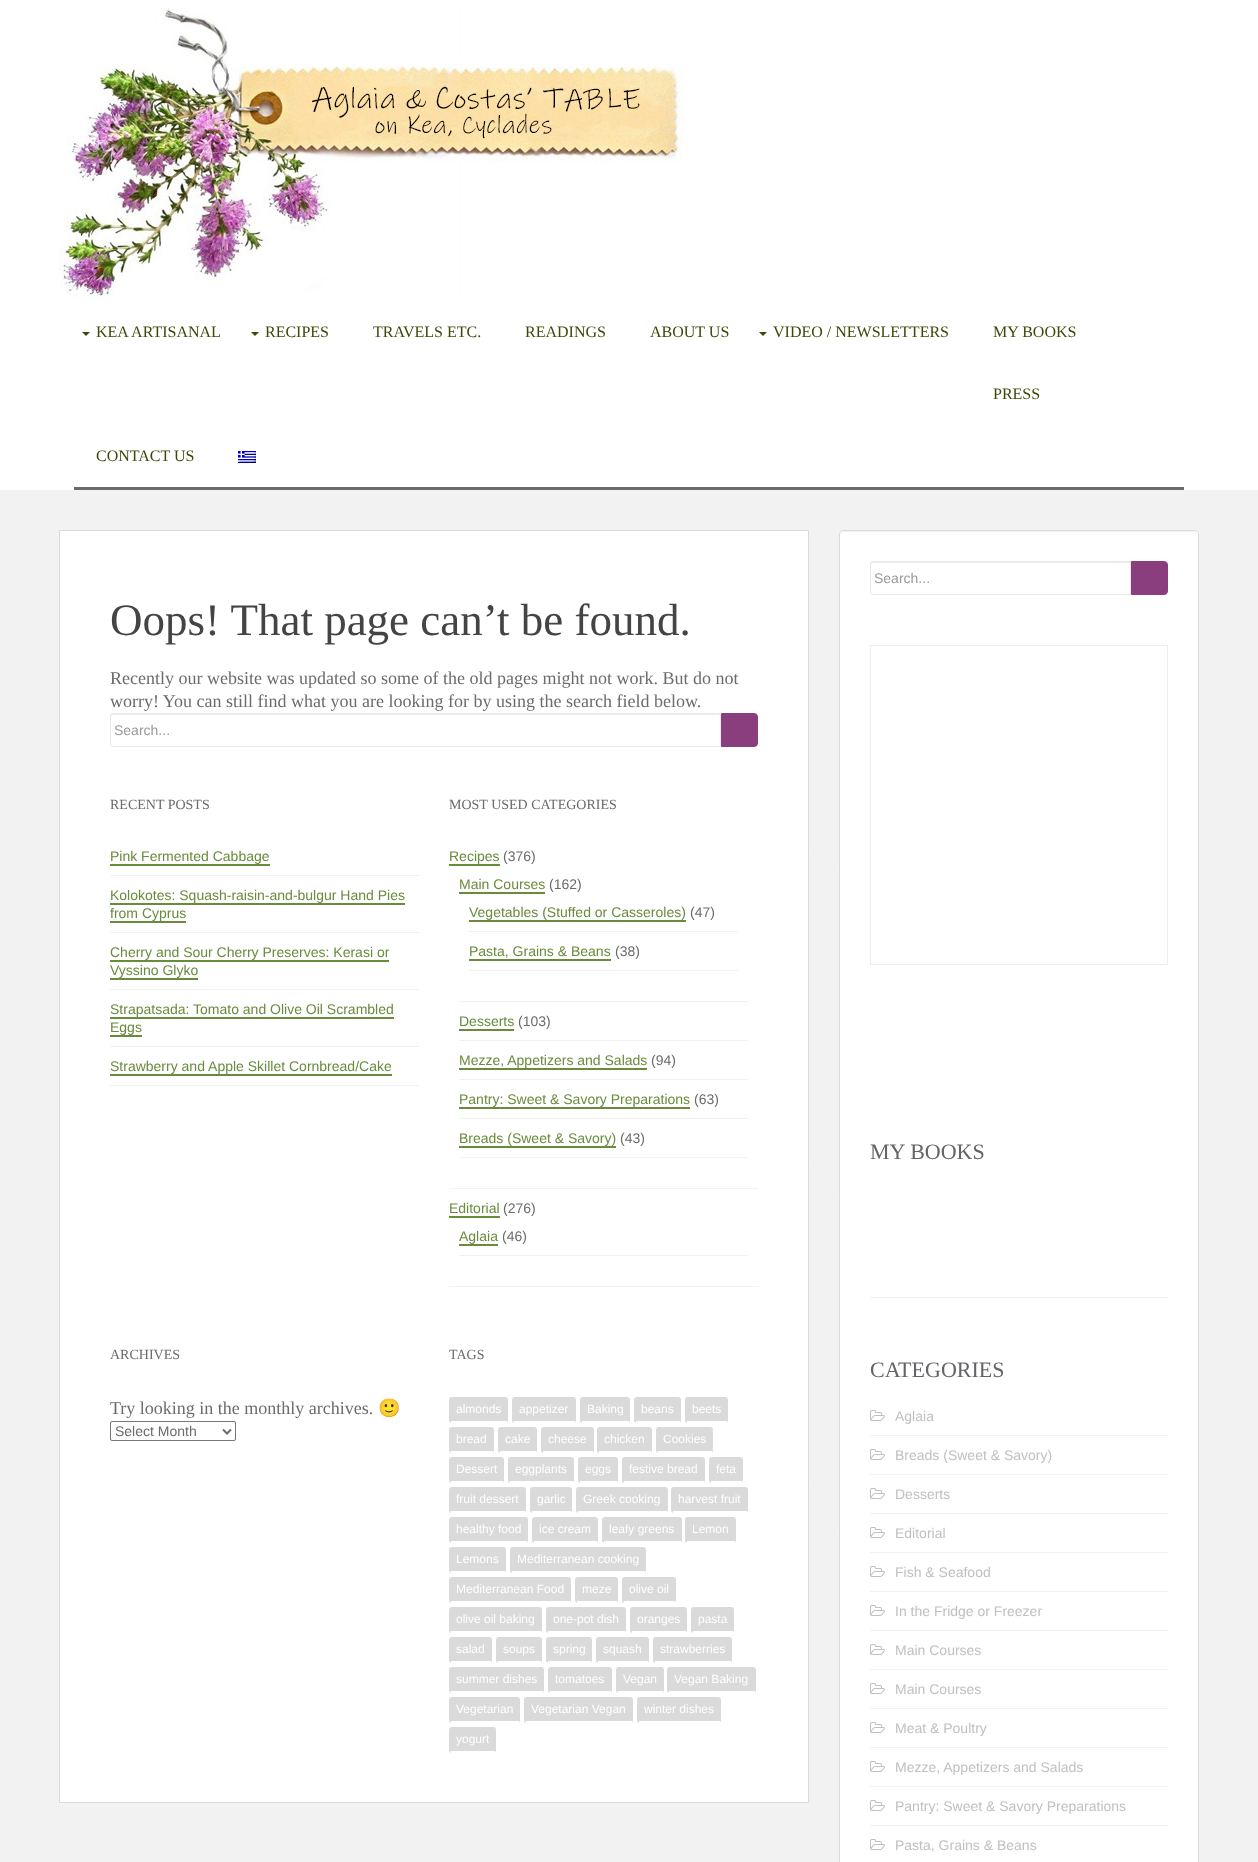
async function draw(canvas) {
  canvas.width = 1258
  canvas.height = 1862
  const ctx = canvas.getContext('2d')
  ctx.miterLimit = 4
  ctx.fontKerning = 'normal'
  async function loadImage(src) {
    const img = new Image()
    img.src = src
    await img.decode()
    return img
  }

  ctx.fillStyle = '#f2f2f2'
  ctx.fillRect(0, 0, 1258, 1862)
  ctx.fillStyle = '#fff'
  ctx.fillRect(0, 0, 1258, 490)
  ctx.drawImage(await loadImage('image0.png'), 59, 8, 625, 290)
  ctx.fillStyle = '#6b6b6b'
  ctx.fillRect(74, 487, 1110, 3)
  ctx.fillStyle = '#3c4806'
  ctx.beginPath()
  ctx.moveTo(82, 332)
  ctx.lineTo(90, 332)
  ctx.lineTo(86, 336)
  ctx.closePath()
  ctx.fill()
  ctx.font = '16px Liberation Serif'
  ctx.fillText('KEA ARTISANAL', 96, 337)
  ctx.beginPath()
  ctx.moveTo(251, 332)
  ctx.lineTo(259, 332)
  ctx.lineTo(255, 336)
  ctx.closePath()
  ctx.fill()
  ctx.fillText('RECIPES', 265, 337)
  ctx.fillText('TRAVELS ETC.', 373, 337)
  ctx.fillText('READINGS', 525, 337)
  ctx.fillText('ABOUT US', 650, 337)
  ctx.beginPath()
  ctx.moveTo(759, 332)
  ctx.lineTo(767, 332)
  ctx.lineTo(763, 336)
  ctx.closePath()
  ctx.fill()
  ctx.fillText('VIDEO / NEWSLETTERS', 773, 337)
  ctx.fillText('MY BOOKS', 993, 337)
  ctx.fillText('PRESS', 993, 399)
  ctx.fillText('CONTACT US', 96, 461)
  ctx.drawImage(await loadImage('image1.png'), 238, 451, 18, 12)
  ctx.fillStyle = '#fff'
  ctx.beginPath()
  ctx.rect(59.5, 530.5, 749, 1272)
  ctx.fill()
  ctx.strokeStyle = '#dadada'
  ctx.stroke()
  ctx.font = '45px Liberation Serif'
  ctx.fillStyle = '#444'
  ctx.fillText('Oops! That page can’t be found.', 110, 635)
  ctx.font = '18px Liberation Serif'
  ctx.fillStyle = '#6b6b6b'
  ctx.fillText('Recently our website was updated so some of the old pages might not work. But do not', 110, 684)
  ctx.fillText('worry! You can still find what you are looking for by using the search field below.', 110, 707)
  ctx.fillStyle = '#ececec'
  ctx.beginPath()
  ctx.moveTo(113, 715)
  ctx.lineTo(720, 715)
  ctx.lineTo(720, 714)
  ctx.lineTo(113, 714)
  ctx.lineTo(111, 715)
  ctx.lineTo(111, 717)
  ctx.bezierCurveTo(111, 716, 112, 715, 113, 715)
  ctx.closePath()
  ctx.fill()
  ctx.beginPath()
  ctx.roundRect(110.5, 713.5, 610, 33, [2.5, 0, 0, 2.5])
  ctx.strokeStyle = '#e8e8e8'
  ctx.stroke()
  ctx.font = '14px Liberation Sans'
  ctx.fillStyle = '#999'
  ctx.fillText('Search...', 114, 735)
  ctx.fillStyle = '#8a3e7e'
  ctx.beginPath()
  ctx.roundRect(721.5, 713.5, 36, 33, [0, 3.5, 3.5, 0])
  ctx.fill()
  ctx.strokeStyle = '#8a3e7e'
  ctx.stroke()
  ctx.font = '14px Liberation Serif'
  ctx.fillStyle = '#6b6b6b'
  ctx.fillText('RECENT POSTS', 110, 809)
  ctx.fillStyle = '#f2f2f2'
  ctx.fillRect(110, 875, 309, 1)
  ctx.font = '14px Liberation Sans'
  ctx.fillStyle = '#688b3c'
  ctx.fillText('Pink Fermented Cabbage', 110, 861)
  ctx.fillRect(110, 864, 160, 2)
  ctx.fillStyle = '#f2f2f2'
  ctx.fillRect(110, 932, 309, 1)
  ctx.fillStyle = '#688b3c'
  ctx.fillText('Kolokotes: Squash-raisin-and-bulgur Hand Pies', 110, 900)
  ctx.fillRect(110, 903, 295, 2)
  ctx.fillText('from Cyprus', 110, 918)
  ctx.fillRect(110, 921, 76, 2)
  ctx.fillStyle = '#f2f2f2'
  ctx.fillRect(110, 989, 309, 1)
  ctx.fillStyle = '#688b3c'
  ctx.fillText('Cherry and Sour Cherry Preserves: Kerasi or', 110, 957)
  ctx.fillRect(110, 960, 279, 2)
  ctx.fillText('Vyssino Glyko', 110, 975)
  ctx.fillRect(110, 978, 88, 2)
  ctx.fillStyle = '#f2f2f2'
  ctx.fillRect(110, 1046, 309, 1)
  ctx.fillStyle = '#688b3c'
  ctx.fillText('Strapatsada: Tomato and Olive Oil Scrambled', 110, 1014)
  ctx.fillRect(110, 1017, 284, 2)
  ctx.fillText('Eggs', 110, 1032)
  ctx.fillRect(110, 1035, 32, 2)
  ctx.fillStyle = '#f2f2f2'
  ctx.fillRect(110, 1085, 309, 1)
  ctx.fillStyle = '#688b3c'
  ctx.fillText('Strawberry and Apple Skillet Cornbread/Cake', 110, 1071)
  ctx.fillRect(110, 1074, 282, 2)
  ctx.font = '14px Liberation Serif'
  ctx.fillStyle = '#6b6b6b'
  ctx.fillText('MOST USED CATEGORIES', 449, 809)
  ctx.fillStyle = '#f2f2f2'
  ctx.fillRect(449, 1188, 309, 1)
  ctx.font = '14px Liberation Sans'
  ctx.fillStyle = '#688b3c'
  ctx.fillText('Recipes', 449, 861)
  ctx.fillRect(449, 864, 51, 2)
  ctx.fillStyle = '#6b6b6b'
  ctx.fillText('(376)', 503, 861)
  ctx.fillStyle = '#f2f2f2'
  ctx.fillRect(459, 1001, 289, 1)
  ctx.fillStyle = '#688b3c'
  ctx.fillText('Main Courses', 459, 889)
  ctx.fillRect(459, 892, 86, 2)
  ctx.fillStyle = '#6b6b6b'
  ctx.fillText('(162)', 549, 889)
  ctx.fillStyle = '#f2f2f2'
  ctx.fillRect(469, 931, 269, 1)
  ctx.fillStyle = '#688b3c'
  ctx.fillText('Vegetables (Stuffed or Casseroles)', 469, 917)
  ctx.fillRect(469, 920, 217, 2)
  ctx.fillStyle = '#6b6b6b'
  ctx.fillText('(47)', 690, 917)
  ctx.fillStyle = '#f2f2f2'
  ctx.fillRect(469, 970, 269, 1)
  ctx.fillStyle = '#688b3c'
  ctx.fillText('Pasta, Grains & Beans', 469, 956)
  ctx.fillRect(469, 959, 142, 2)
  ctx.fillStyle = '#6b6b6b'
  ctx.fillText('(38)', 615, 956)
  ctx.fillStyle = '#f2f2f2'
  ctx.fillRect(459, 1040, 289, 1)
  ctx.fillStyle = '#688b3c'
  ctx.fillText('Desserts', 459, 1026)
  ctx.fillRect(459, 1029, 55, 2)
  ctx.fillStyle = '#6b6b6b'
  ctx.fillText('(103)', 518, 1026)
  ctx.fillStyle = '#f2f2f2'
  ctx.fillRect(459, 1079, 289, 1)
  ctx.fillStyle = '#688b3c'
  ctx.fillText('Mezze, Appetizers and Salads', 459, 1065)
  ctx.fillRect(459, 1068, 188, 2)
  ctx.fillStyle = '#6b6b6b'
  ctx.fillText('(94)', 651, 1065)
  ctx.fillStyle = '#f2f2f2'
  ctx.fillRect(459, 1118, 289, 1)
  ctx.fillStyle = '#688b3c'
  ctx.fillText('Pantry: Sweet & Savory Preparations', 459, 1104)
  ctx.fillRect(459, 1107, 231, 2)
  ctx.fillStyle = '#6b6b6b'
  ctx.fillText('(63)', 694, 1104)
  ctx.fillStyle = '#f2f2f2'
  ctx.fillRect(459, 1157, 289, 1)
  ctx.fillStyle = '#688b3c'
  ctx.fillText('Breads (Sweet & Savory)', 459, 1143)
  ctx.fillRect(459, 1146, 157, 2)
  ctx.fillStyle = '#6b6b6b'
  ctx.fillText('(43)', 620, 1143)
  ctx.fillStyle = '#f2f2f2'
  ctx.fillRect(449, 1286, 309, 1)
  ctx.fillStyle = '#688b3c'
  ctx.fillText('Editorial', 449, 1213)
  ctx.fillRect(449, 1216, 51, 2)
  ctx.fillStyle = '#6b6b6b'
  ctx.fillText('(276)', 503, 1213)
  ctx.fillStyle = '#f2f2f2'
  ctx.fillRect(459, 1255, 289, 1)
  ctx.fillStyle = '#688b3c'
  ctx.fillText('Aglaia', 459, 1241)
  ctx.fillRect(459, 1244, 39, 2)
  ctx.fillStyle = '#6b6b6b'
  ctx.fillText('(46)', 502, 1241)
  ctx.font = '14px Liberation Serif'
  ctx.fillText('ARCHIVES', 110, 1359)
  ctx.font = '18px Liberation Serif'
  ctx.fillText('Try looking in the monthly archives.', 110, 1414)
  ctx.font = '18px Noto Color Emoji'
  ctx.fillText('🙂', 378, 1414)
  ctx.beginPath()
  ctx.roundRect(110.5, 1421.5, 125, 19, 1.5)
  ctx.strokeStyle = '#767676'
  ctx.stroke()
  ctx.beginPath()
  ctx.moveTo(223, 1429.5)
  ctx.lineTo(227, 1433.5)
  ctx.lineTo(231, 1429.5)
  ctx.strokeStyle = '#6b6b6b'
  ctx.lineWidth = 2
  ctx.stroke()
  ctx.font = '14px Liberation Sans'
  ctx.fillText('Select Month', 115, 1436)
  ctx.font = '14px Liberation Serif'
  ctx.fillText('TAGS', 449, 1359)
  ctx.fillStyle = '#dadada'
  ctx.beginPath()
  ctx.roundRect(449, 1397, 59, 26, 3)
  ctx.fill()
  ctx.fillStyle = '#fff'
  ctx.fillRect(451, 1421, 56, 2)
  ctx.font = '12px Liberation Sans'
  ctx.fillText('almonds', 456, 1413)
  ctx.fillStyle = '#dadada'
  ctx.beginPath()
  ctx.roundRect(512, 1397, 64, 26, 3)
  ctx.fill()
  ctx.fillStyle = '#fff'
  ctx.fillRect(514, 1421, 61, 2)
  ctx.fillText('appetizer', 519, 1413)
  ctx.fillStyle = '#dadada'
  ctx.beginPath()
  ctx.roundRect(580, 1397, 50, 26, 3)
  ctx.fill()
  ctx.fillStyle = '#fff'
  ctx.fillRect(582, 1421, 47, 2)
  ctx.fillText('Baking', 587, 1413)
  ctx.fillStyle = '#dadada'
  ctx.beginPath()
  ctx.roundRect(634, 1397, 47, 26, 3)
  ctx.fill()
  ctx.fillStyle = '#fff'
  ctx.fillRect(636, 1421, 44, 2)
  ctx.fillText('beans', 641, 1413)
  ctx.fillStyle = '#dadada'
  ctx.beginPath()
  ctx.roundRect(685, 1397, 43, 26, 3)
  ctx.fill()
  ctx.fillStyle = '#fff'
  ctx.fillRect(687, 1421, 40, 2)
  ctx.fillText('beets', 692, 1413)
  ctx.fillStyle = '#dadada'
  ctx.beginPath()
  ctx.roundRect(449, 1427, 45, 26, 3)
  ctx.fill()
  ctx.fillStyle = '#fff'
  ctx.fillRect(451, 1451, 42, 2)
  ctx.fillText('bread', 456, 1443)
  ctx.fillStyle = '#dadada'
  ctx.beginPath()
  ctx.roundRect(498, 1427, 39, 26, 3)
  ctx.fill()
  ctx.fillStyle = '#fff'
  ctx.fillRect(500, 1451, 36, 2)
  ctx.fillText('cake', 505, 1443)
  ctx.fillStyle = '#dadada'
  ctx.beginPath()
  ctx.roundRect(541, 1427, 53, 26, 3)
  ctx.fill()
  ctx.fillStyle = '#fff'
  ctx.fillRect(543, 1451, 50, 2)
  ctx.fillText('cheese', 548, 1443)
  ctx.fillStyle = '#dadada'
  ctx.beginPath()
  ctx.roundRect(597, 1427, 55, 26, 3)
  ctx.fill()
  ctx.fillStyle = '#fff'
  ctx.fillRect(599, 1451, 52, 2)
  ctx.fillText('chicken', 604, 1443)
  ctx.fillStyle = '#dadada'
  ctx.beginPath()
  ctx.roundRect(656, 1427, 57, 26, 3)
  ctx.fill()
  ctx.fillStyle = '#fff'
  ctx.fillRect(658, 1451, 54, 2)
  ctx.fillText('Cookies', 663, 1443)
  ctx.fillStyle = '#dadada'
  ctx.beginPath()
  ctx.roundRect(449, 1457, 55, 26, 3)
  ctx.fill()
  ctx.fillStyle = '#fff'
  ctx.fillRect(451, 1481, 52, 2)
  ctx.fillText('Dessert', 456, 1473)
  ctx.fillStyle = '#dadada'
  ctx.beginPath()
  ctx.roundRect(508, 1457, 66, 26, 3)
  ctx.fill()
  ctx.fillStyle = '#fff'
  ctx.fillRect(510, 1481, 63, 2)
  ctx.fillText('eggplants', 515, 1473)
  ctx.fillStyle = '#dadada'
  ctx.beginPath()
  ctx.roundRect(578, 1457, 40, 26, 3)
  ctx.fill()
  ctx.fillStyle = '#fff'
  ctx.fillRect(580, 1481, 37, 2)
  ctx.fillText('eggs', 585, 1473)
  ctx.fillStyle = '#dadada'
  ctx.beginPath()
  ctx.roundRect(622, 1457, 83, 26, 3)
  ctx.fill()
  ctx.fillStyle = '#fff'
  ctx.fillRect(624, 1481, 80, 2)
  ctx.fillText('festive bread', 629, 1473)
  ctx.fillStyle = '#dadada'
  ctx.beginPath()
  ctx.roundRect(709, 1457, 34, 26, 3)
  ctx.fill()
  ctx.fillStyle = '#fff'
  ctx.fillRect(711, 1481, 31, 2)
  ctx.fillText('feta', 716, 1473)
  ctx.fillStyle = '#dadada'
  ctx.beginPath()
  ctx.roundRect(449, 1487, 77, 26, 3)
  ctx.fill()
  ctx.fillStyle = '#fff'
  ctx.fillRect(451, 1511, 74, 2)
  ctx.fillText('fruit dessert', 456, 1503)
  ctx.fillStyle = '#dadada'
  ctx.beginPath()
  ctx.roundRect(530, 1487, 42, 26, 3)
  ctx.fill()
  ctx.fillStyle = '#fff'
  ctx.fillRect(532, 1511, 39, 2)
  ctx.fillText('garlic', 537, 1503)
  ctx.fillStyle = '#dadada'
  ctx.beginPath()
  ctx.roundRect(576, 1487, 92, 26, 3)
  ctx.fill()
  ctx.fillStyle = '#fff'
  ctx.fillRect(578, 1511, 89, 2)
  ctx.fillText('Greek cooking', 583, 1503)
  ctx.fillStyle = '#dadada'
  ctx.beginPath()
  ctx.roundRect(671, 1487, 77, 26, 3)
  ctx.fill()
  ctx.fillStyle = '#fff'
  ctx.fillRect(673, 1511, 74, 2)
  ctx.fillText('harvest fruit', 678, 1503)
  ctx.fillStyle = '#dadada'
  ctx.beginPath()
  ctx.roundRect(449, 1517, 79, 26, 3)
  ctx.fill()
  ctx.fillStyle = '#fff'
  ctx.fillRect(451, 1541, 76, 2)
  ctx.fillText('healthy food', 456, 1533)
  ctx.fillStyle = '#dadada'
  ctx.beginPath()
  ctx.roundRect(532, 1517, 66, 26, 3)
  ctx.fill()
  ctx.fillStyle = '#fff'
  ctx.fillRect(534, 1541, 63, 2)
  ctx.fillText('ice cream', 539, 1533)
  ctx.fillStyle = '#dadada'
  ctx.beginPath()
  ctx.roundRect(602, 1517, 80, 26, 3)
  ctx.fill()
  ctx.fillStyle = '#fff'
  ctx.fillRect(604, 1541, 77, 2)
  ctx.fillText('leafy greens', 609, 1533)
  ctx.fillStyle = '#dadada'
  ctx.beginPath()
  ctx.roundRect(685, 1517, 51, 26, 3)
  ctx.fill()
  ctx.fillStyle = '#fff'
  ctx.fillRect(687, 1541, 48, 2)
  ctx.fillText('Lemon', 692, 1533)
  ctx.fillStyle = '#dadada'
  ctx.beginPath()
  ctx.roundRect(449, 1547, 57, 26, 3)
  ctx.fill()
  ctx.fillStyle = '#fff'
  ctx.fillRect(451, 1571, 54, 2)
  ctx.fillText('Lemons', 456, 1563)
  ctx.fillStyle = '#dadada'
  ctx.beginPath()
  ctx.roundRect(510, 1547, 136, 26, 3)
  ctx.fill()
  ctx.fillStyle = '#fff'
  ctx.fillRect(512, 1571, 133, 2)
  ctx.fillText('Mediterranean cooking', 517, 1563)
  ctx.fillStyle = '#dadada'
  ctx.beginPath()
  ctx.roundRect(449, 1577, 122, 26, 3)
  ctx.fill()
  ctx.fillStyle = '#fff'
  ctx.fillRect(451, 1601, 119, 2)
  ctx.fillText('Mediterranean Food', 456, 1593)
  ctx.fillStyle = '#dadada'
  ctx.beginPath()
  ctx.roundRect(575, 1577, 43, 26, 3)
  ctx.fill()
  ctx.fillStyle = '#fff'
  ctx.fillRect(577, 1601, 40, 2)
  ctx.fillText('meze', 582, 1593)
  ctx.fillStyle = '#dadada'
  ctx.beginPath()
  ctx.roundRect(622, 1577, 54, 26, 3)
  ctx.fill()
  ctx.fillStyle = '#fff'
  ctx.fillRect(624, 1601, 51, 2)
  ctx.fillText('olive oil', 629, 1593)
  ctx.fillStyle = '#dadada'
  ctx.beginPath()
  ctx.roundRect(449, 1607, 93, 26, 3)
  ctx.fill()
  ctx.fillStyle = '#fff'
  ctx.fillRect(451, 1631, 90, 2)
  ctx.fillText('olive oil baking', 456, 1623)
  ctx.fillStyle = '#dadada'
  ctx.beginPath()
  ctx.roundRect(546, 1607, 80, 26, 3)
  ctx.fill()
  ctx.fillStyle = '#fff'
  ctx.fillRect(548, 1631, 77, 2)
  ctx.fillText('one-pot dish', 553, 1623)
  ctx.fillStyle = '#dadada'
  ctx.beginPath()
  ctx.roundRect(630, 1607, 57, 26, 3)
  ctx.fill()
  ctx.fillStyle = '#fff'
  ctx.fillRect(632, 1631, 54, 2)
  ctx.fillText('oranges', 637, 1623)
  ctx.fillStyle = '#dadada'
  ctx.beginPath()
  ctx.roundRect(691, 1607, 43, 26, 3)
  ctx.fill()
  ctx.fillStyle = '#fff'
  ctx.fillRect(693, 1631, 40, 2)
  ctx.fillText('pasta', 698, 1623)
  ctx.fillStyle = '#dadada'
  ctx.beginPath()
  ctx.roundRect(449, 1637, 43, 26, 3)
  ctx.fill()
  ctx.fillStyle = '#fff'
  ctx.fillRect(451, 1661, 40, 2)
  ctx.fillText('salad', 456, 1653)
  ctx.fillStyle = '#dadada'
  ctx.beginPath()
  ctx.roundRect(496, 1637, 46, 26, 3)
  ctx.fill()
  ctx.fillStyle = '#fff'
  ctx.fillRect(498, 1661, 43, 2)
  ctx.fillText('soups', 503, 1653)
  ctx.fillStyle = '#dadada'
  ctx.beginPath()
  ctx.roundRect(546, 1637, 46, 26, 3)
  ctx.fill()
  ctx.fillStyle = '#fff'
  ctx.fillRect(548, 1661, 43, 2)
  ctx.fillText('spring', 553, 1653)
  ctx.fillStyle = '#dadada'
  ctx.beginPath()
  ctx.roundRect(596, 1637, 53, 26, 3)
  ctx.fill()
  ctx.fillStyle = '#fff'
  ctx.fillRect(598, 1661, 50, 2)
  ctx.fillText('squash', 603, 1653)
  ctx.fillStyle = '#dadada'
  ctx.beginPath()
  ctx.roundRect(653, 1637, 79, 26, 3)
  ctx.fill()
  ctx.fillStyle = '#fff'
  ctx.fillRect(655, 1661, 76, 2)
  ctx.fillText('strawberries', 660, 1653)
  ctx.fillStyle = '#dadada'
  ctx.beginPath()
  ctx.roundRect(449, 1667, 95, 26, 3)
  ctx.fill()
  ctx.fillStyle = '#fff'
  ctx.fillRect(451, 1691, 92, 2)
  ctx.fillText('summer dishes', 456, 1683)
  ctx.fillStyle = '#dadada'
  ctx.beginPath()
  ctx.roundRect(548, 1667, 64, 26, 3)
  ctx.fill()
  ctx.fillStyle = '#fff'
  ctx.fillRect(550, 1691, 61, 2)
  ctx.fillText('tomatoes', 555, 1683)
  ctx.fillStyle = '#dadada'
  ctx.beginPath()
  ctx.roundRect(616, 1667, 48, 26, 3)
  ctx.fill()
  ctx.fillStyle = '#fff'
  ctx.fillRect(618, 1691, 45, 2)
  ctx.fillText('Vegan', 623, 1683)
  ctx.fillStyle = '#dadada'
  ctx.beginPath()
  ctx.roundRect(667, 1667, 89, 26, 3)
  ctx.fill()
  ctx.fillStyle = '#fff'
  ctx.fillRect(669, 1691, 86, 2)
  ctx.fillText('Vegan Baking', 674, 1683)
  ctx.fillStyle = '#dadada'
  ctx.beginPath()
  ctx.roundRect(449, 1697, 71, 26, 3)
  ctx.fill()
  ctx.fillStyle = '#fff'
  ctx.fillRect(451, 1721, 68, 2)
  ctx.fillText('Vegetarian', 456, 1713)
  ctx.fillStyle = '#dadada'
  ctx.beginPath()
  ctx.roundRect(524, 1697, 109, 26, 3)
  ctx.fill()
  ctx.fillStyle = '#fff'
  ctx.fillRect(526, 1721, 106, 2)
  ctx.fillText('Vegetarian Vegan', 531, 1713)
  ctx.fillStyle = '#dadada'
  ctx.beginPath()
  ctx.roundRect(637, 1697, 84, 26, 3)
  ctx.fill()
  ctx.fillStyle = '#fff'
  ctx.fillRect(639, 1721, 81, 2)
  ctx.fillText('winter dishes', 644, 1713)
  ctx.fillStyle = '#dadada'
  ctx.beginPath()
  ctx.roundRect(449, 1727, 47, 26, 3)
  ctx.fill()
  ctx.fillStyle = '#fff'
  ctx.fillRect(451, 1751, 44, 2)
  ctx.fillText('yogurt', 456, 1743)
  ctx.beginPath()
  ctx.roundRect(839, 530, 360, 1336, 4)
  ctx.fill()
  ctx.fillStyle = '#f2f2f2'
  ctx.beginPath()
  ctx.moveTo(843, 532)
  ctx.lineTo(1195, 532)
  ctx.bezierCurveTo(1197, 532, 1198, 533, 1198, 535)
  ctx.bezierCurveTo(1198, 533, 1197, 531, 1195, 531)
  ctx.lineTo(843, 531)
  ctx.lineTo(841, 532)
  ctx.lineTo(840, 535)
  ctx.bezierCurveTo(840, 533, 841, 532, 843, 532)
  ctx.closePath()
  ctx.fill()
  ctx.beginPath()
  ctx.roundRect(839.5, 530.5, 359, 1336, 3.5)
  ctx.strokeStyle = '#dadada'
  ctx.lineWidth = 1
  ctx.stroke()
  ctx.fillStyle = '#ececec'
  ctx.beginPath()
  ctx.moveTo(873, 563)
  ctx.lineTo(1130, 563)
  ctx.lineTo(1130, 562)
  ctx.lineTo(873, 562)
  ctx.bezierCurveTo(871, 562, 871, 564, 871, 565)
  ctx.bezierCurveTo(871, 564, 872, 563, 873, 563)
  ctx.closePath()
  ctx.fill()
  ctx.beginPath()
  ctx.roundRect(870.5, 561.5, 260, 33, [2.5, 0, 0, 2.5])
  ctx.strokeStyle = '#e8e8e8'
  ctx.stroke()
  ctx.font = '14px Liberation Sans'
  ctx.fillStyle = '#999'
  ctx.fillText('Search...', 874, 583)
  ctx.fillStyle = '#8a3e7e'
  ctx.beginPath()
  ctx.roundRect(1131.5, 561.5, 36, 33, [0, 3.5, 3.5, 0])
  ctx.fill()
  ctx.strokeStyle = '#8a3e7e'
  ctx.stroke()
  ctx.strokeStyle = '#eee'
  ctx.strokeRect(870.5, 645.5, 297, 319)
  ctx.font = '22px Liberation Serif'
  ctx.fillStyle = '#636467'
  ctx.fillText('MY BOOKS', 870, 1159)
  ctx.fillStyle = '#f2f2f2'
  ctx.fillRect(870, 1297, 298, 1)
  ctx.fillStyle = '#636467'
  ctx.fillText('CATEGORIES', 870, 1377)
  ctx.fillStyle = '#f2f2f2'
  ctx.fillRect(870, 1435, 298, 1)
  ctx.drawImage(await loadImage('image2.png'), 870, 1410, 15, 11)
  ctx.font = '14px Liberation Sans'
  ctx.fillStyle = '#c1c0c0'
  ctx.fillText('Aglaia', 895, 1421)
  ctx.fillStyle = '#f2f2f2'
  ctx.fillRect(870, 1474, 298, 1)
  ctx.drawImage(await loadImage('image2.png'), 870, 1449, 15, 11)
  ctx.fillStyle = '#c1c0c0'
  ctx.fillText('Breads (Sweet & Savory)', 895, 1460)
  ctx.fillStyle = '#f2f2f2'
  ctx.fillRect(870, 1513, 298, 1)
  ctx.drawImage(await loadImage('image2.png'), 870, 1488, 15, 11)
  ctx.fillStyle = '#c1c0c0'
  ctx.fillText('Desserts', 895, 1499)
  ctx.fillStyle = '#f2f2f2'
  ctx.fillRect(870, 1552, 298, 1)
  ctx.drawImage(await loadImage('image2.png'), 870, 1527, 15, 11)
  ctx.fillStyle = '#c1c0c0'
  ctx.fillText('Editorial', 895, 1538)
  ctx.fillStyle = '#f2f2f2'
  ctx.fillRect(870, 1591, 298, 1)
  ctx.drawImage(await loadImage('image2.png'), 870, 1566, 15, 11)
  ctx.fillStyle = '#c1c0c0'
  ctx.fillText('Fish & Seafood', 895, 1577)
  ctx.fillStyle = '#f2f2f2'
  ctx.fillRect(870, 1630, 298, 1)
  ctx.drawImage(await loadImage('image2.png'), 870, 1605, 15, 11)
  ctx.fillStyle = '#c1c0c0'
  ctx.fillText('In the Fridge or Freezer', 895, 1616)
  ctx.fillStyle = '#f2f2f2'
  ctx.fillRect(870, 1669, 298, 1)
  ctx.drawImage(await loadImage('image2.png'), 870, 1644, 15, 11)
  ctx.fillStyle = '#c1c0c0'
  ctx.fillText('Main Courses', 895, 1655)
  ctx.fillStyle = '#f2f2f2'
  ctx.fillRect(870, 1708, 298, 1)
  ctx.drawImage(await loadImage('image2.png'), 870, 1683, 15, 11)
  ctx.fillStyle = '#c1c0c0'
  ctx.fillText('Main Courses', 895, 1694)
  ctx.fillStyle = '#f2f2f2'
  ctx.fillRect(870, 1747, 298, 1)
  ctx.drawImage(await loadImage('image2.png'), 870, 1722, 15, 11)
  ctx.fillStyle = '#c1c0c0'
  ctx.fillText('Meat & Poultry', 895, 1733)
  ctx.fillStyle = '#f2f2f2'
  ctx.fillRect(870, 1786, 298, 1)
  ctx.drawImage(await loadImage('image2.png'), 870, 1761, 15, 11)
  ctx.fillStyle = '#c1c0c0'
  ctx.fillText('Mezze, Appetizers and Salads', 895, 1772)
  ctx.fillStyle = '#f2f2f2'
  ctx.fillRect(870, 1825, 298, 1)
  ctx.drawImage(await loadImage('image2.png'), 870, 1800, 15, 11)
  ctx.fillStyle = '#c1c0c0'
  ctx.fillText('Pantry: Sweet & Savory Preparations', 895, 1811)
  ctx.drawImage(await loadImage('image2.png'), 870, 1839, 15, 11)
  ctx.fillText('Pasta, Grains & Beans', 895, 1850)
}

draw(document.querySelector('canvas'))
